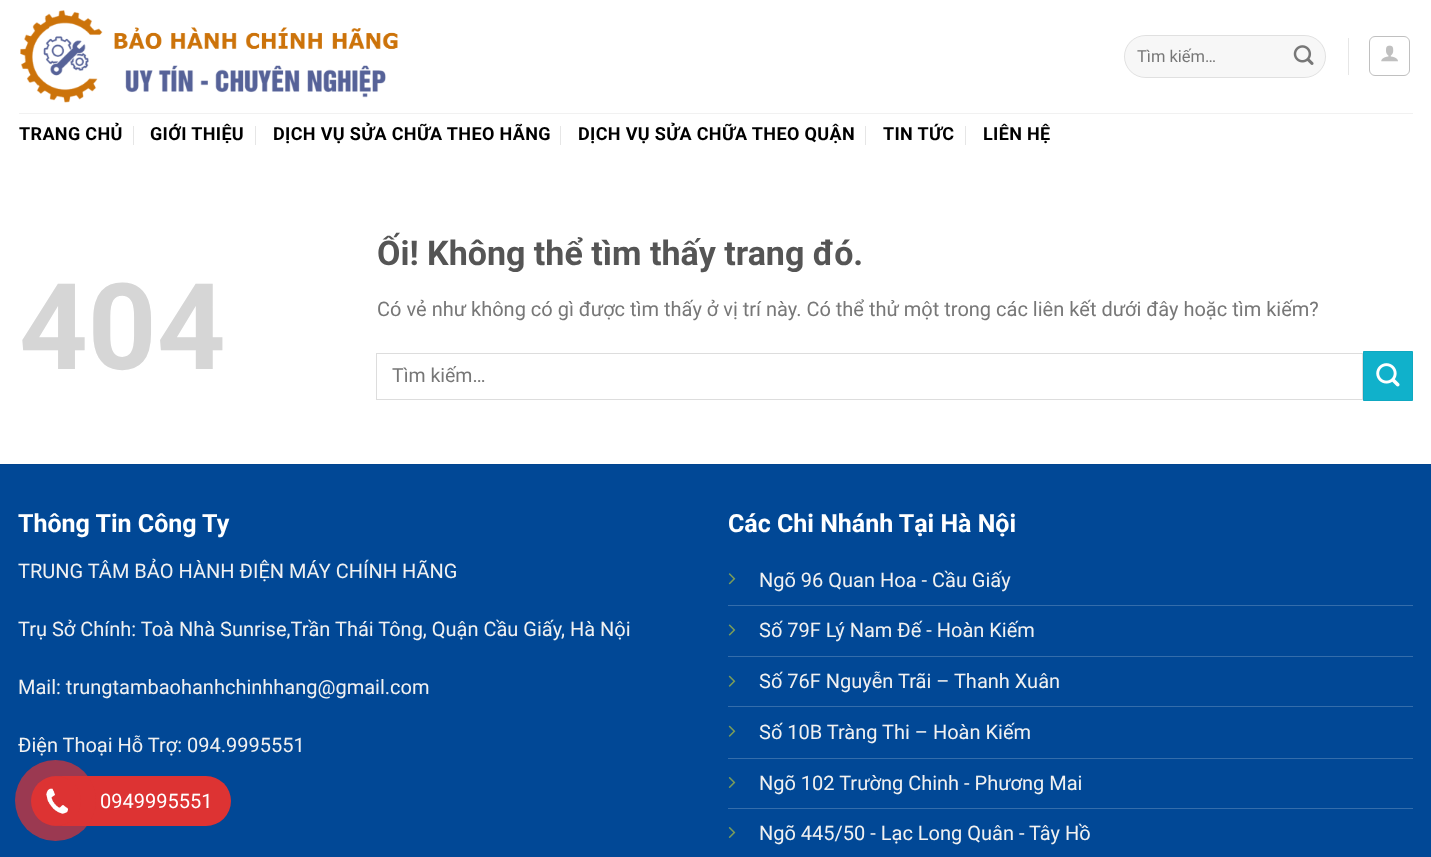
async function draw(canvas) {
  canvas.width = 1431
  canvas.height = 857
  const ctx = canvas.getContext('2d')
  ctx.miterLimit = 4
  ctx.fontKerning = 'normal'
  async function loadImage(src) {
    const img = new Image()
    img.src = src
    await img.decode()
    return img
  }

  ctx.fillStyle = '#fff'
  ctx.fillRect(0, 0, 1431, 857)
  ctx.drawImage(await loadImage('image0.png'), 20, 10, 378, 93)
  ctx.fillStyle = '#f7f7f7'
  ctx.beginPath()
  ctx.roundRect(1124, 35, 202, 43, 21.5)
  ctx.fill()
  ctx.beginPath()
  ctx.roundRect(1124.5, 35.5, 201, 42, 21)
  ctx.strokeStyle = '#00000017'
  ctx.stroke()
  ctx.font = '16.5px Roboto'
  ctx.fillStyle = '#777'
  ctx.fillText('Tìm kiếm…', 1137, 62)
  ctx.drawImage(await loadImage('image1.png'), 1293, 45, 21, 20)
  ctx.fillStyle = '#e6e6e6'
  ctx.fillRect(1348, 38, 1, 37)
  ctx.beginPath()
  ctx.roundRect(1369.5, 36.5, 40, 39, 5.5)
  ctx.strokeStyle = '#c0c0c0'
  ctx.stroke()
  ctx.drawImage(await loadImage('image2.png'), 1381, 45, 17, 17)
  ctx.fillStyle = '#f1f1f1'
  ctx.fillRect(19, 113, 1394, 1)
  ctx.letterSpacing = '0.35px'
  ctx.font = 'bold 18px Roboto'
  ctx.fillStyle = '#000'
  ctx.fillText('TRANG CHỦ', 19, 140)
  ctx.fillStyle = '#e6e6e6'
  ctx.fillRect(133, 126, 1, 19)
  ctx.fillStyle = '#000'
  ctx.fillText('GIỚI THIỆU', 150, 140)
  ctx.fillStyle = '#e6e6e6'
  ctx.fillRect(255, 126, 1, 19)
  ctx.fillStyle = '#000'
  ctx.fillText('DỊCH VỤ SỬA CHỮA THEO HÃNG', 273, 140)
  ctx.fillStyle = '#e6e6e6'
  ctx.fillRect(560, 126, 1, 19)
  ctx.fillStyle = '#000'
  ctx.fillText('DỊCH VỤ SỬA CHỮA THEO QUẬN', 578, 140)
  ctx.fillStyle = '#e6e6e6'
  ctx.fillRect(865, 126, 1, 19)
  ctx.fillStyle = '#000'
  ctx.fillText('TIN TỨC', 883, 140)
  ctx.fillStyle = '#e6e6e6'
  ctx.fillRect(965, 126, 1, 19)
  ctx.fillStyle = '#000'
  ctx.fillText('LIÊN HỆ', 983, 140)
  ctx.letterSpacing = '0px'
  ctx.font = 'bold 120px Roboto'
  ctx.fillStyle = '#d6d6d6'
  ctx.fillText('404', 19, 369)
  ctx.font = 'bold 34px Roboto'
  ctx.fillStyle = '#555'
  ctx.fillText('Ối! Không thể tìm thấy trang đó.', 377, 265)
  ctx.font = '20px Roboto'
  ctx.fillStyle = '#777'
  ctx.fillText('Có vẻ như không có gì được tìm thấy ở vị trí này. Có thể thử một trong các liên kết dưới đây hoặc tìm kiếm?', 377, 316)
  ctx.strokeStyle = '#ddd'
  ctx.strokeRect(376.5, 353.5, 986, 46)
  ctx.font = '19.5px Roboto'
  ctx.fillText('Tìm kiếm…', 392, 382)
  ctx.fillStyle = '#10b1cb'
  ctx.beginPath()
  ctx.rect(1363.5, 351.5, 49, 49)
  ctx.fill()
  ctx.strokeStyle = '#0fa8c1'
  ctx.stroke()
  ctx.drawImage(await loadImage('image3.png'), 1376, 363, 24, 24)
  ctx.fillStyle = '#014896'
  ctx.fillRect(0, 465, 1431, 392)
  ctx.fillStyle = '#01448f'
  ctx.fillRect(0, 464, 1431, 1)
  ctx.font = 'bold 25px Roboto'
  ctx.fillStyle = '#fff'
  ctx.fillText('Thông Tin Công Ty', 18, 532)
  ctx.font = '20px Roboto'
  ctx.fillStyle = '#f1f1f1'
  ctx.fillText('TRUNG TÂM BẢO HÀNH ĐIỆN MÁY CHÍNH HÃNG', 18, 578)
  ctx.fillText('Trụ Sở Chính: Toà Nhà Sunrise,Trần Thái Tông, Quận Cầu Giấy, Hà Nội', 18, 636)
  ctx.fillText('Mail: trungtambaohanhchinhhang@gmail.com', 18, 694)
  ctx.fillText('Điện Thoại Hỗ Trợ: 094.9995551', 18, 752)
  ctx.font = 'bold 25px Roboto'
  ctx.fillStyle = '#fff'
  ctx.fillText('Các Chi Nhánh Tại Hà Nội', 728, 532)
  ctx.fillStyle = '#346dab'
  ctx.fillRect(728, 605, 685, 1)
  ctx.drawImage(await loadImage('image4.png'), 728, 573, 8, 12)
  ctx.font = '20px Roboto'
  ctx.fillStyle = '#f1f1f1'
  ctx.fillText('Ngõ 96 Quan Hoa - Cầu Giấy', 759, 587)
  ctx.fillStyle = '#346dab'
  ctx.fillRect(728, 656, 685, 1)
  ctx.drawImage(await loadImage('image5.png'), 728, 624, 8, 12)
  ctx.fillStyle = '#f1f1f1'
  ctx.fillText('Số 79F Lý Nam Đế - Hoàn Kiếm', 759, 637)
  ctx.fillStyle = '#346dab'
  ctx.fillRect(728, 706, 685, 1)
  ctx.drawImage(await loadImage('image6.png'), 728, 675, 8, 12)
  ctx.fillStyle = '#f1f1f1'
  ctx.fillText('Số 76F Nguyễn Trãi – Thanh Xuân', 759, 688)
  ctx.fillStyle = '#346dab'
  ctx.fillRect(728, 758, 685, 1)
  ctx.drawImage(await loadImage('image6.png'), 728, 725, 8, 12)
  ctx.fillStyle = '#f1f1f1'
  ctx.fillText('Số 10B Tràng Thi – Hoàn Kiếm', 759, 739)
  ctx.fillStyle = '#346dab'
  ctx.fillRect(728, 808, 685, 1)
  ctx.drawImage(await loadImage('image7.png'), 728, 777, 8, 11)
  ctx.fillStyle = '#f1f1f1'
  ctx.fillText('Ngõ 102 Trường Chinh - Phương Mai', 759, 790)
  ctx.drawImage(await loadImage('image7.png'), 728, 827, 8, 11)
  ctx.fillText('Ngõ 445/50 - Lạc Long Quân - Tây Hồ', 759, 840)
  ctx.fillStyle = '#d33'
  ctx.beginPath()
  ctx.roundRect(38, 776, 193, 50, 25)
  ctx.fill()
  ctx.fillStyle = '#dd3333b3'
  ctx.beginPath()
  ctx.arc(55.5, 800.5, 40.5, 0, 2 * Math.PI)
  ctx.fill()
  ctx.fillStyle = '#d33'
  ctx.beginPath()
  ctx.arc(56, 801, 25, 0, 2 * Math.PI)
  ctx.fill()
  ctx.drawImage(await loadImage('image8.png'), 46, 788, 22, 26)
  ctx.fillStyle = '#fff'
  ctx.fillText('0949995551', 100, 808)
}

draw(document.querySelector('canvas'))
